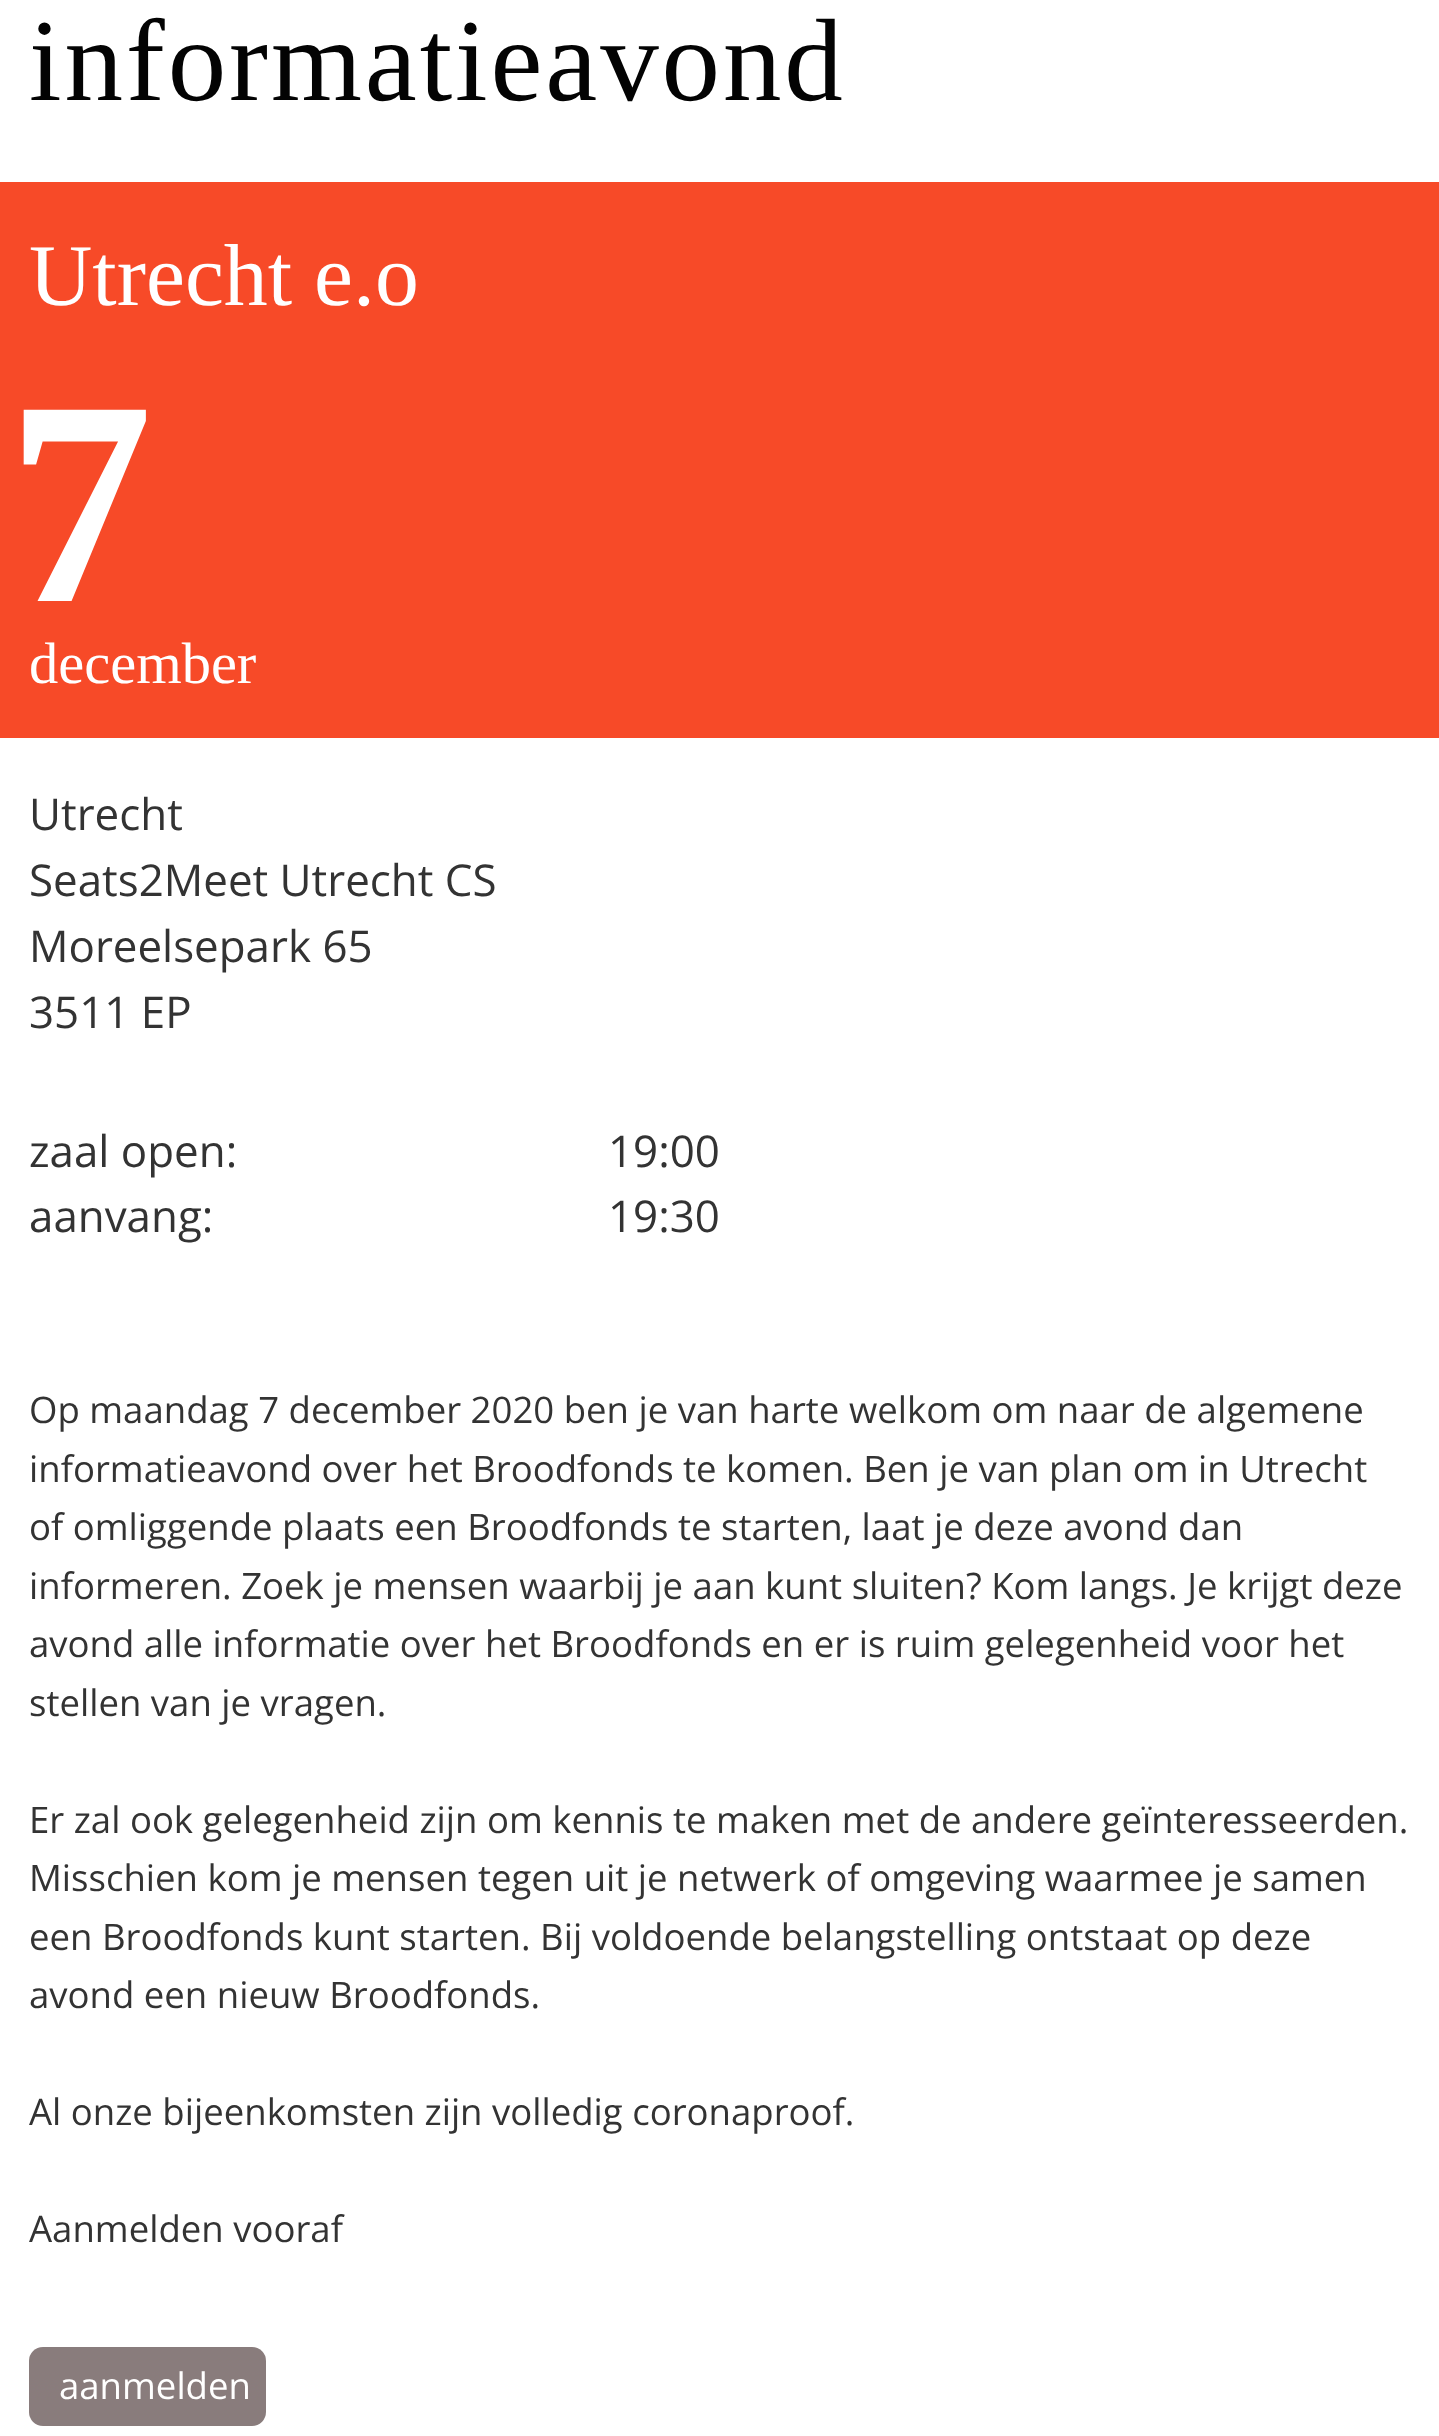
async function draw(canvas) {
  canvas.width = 1439
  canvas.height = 2436
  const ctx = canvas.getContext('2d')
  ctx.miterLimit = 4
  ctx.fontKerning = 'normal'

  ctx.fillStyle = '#fff'
  ctx.fillRect(0, 0, 1439, 2436)
  ctx.letterSpacing = '2.9px'
  ctx.font = '117px Liberation Serif'
  ctx.fillStyle = '#030303'
  ctx.fillText('informatieavond', 29, 100)
  ctx.fillStyle = '#f74a28'
  ctx.fillRect(0, 182, 1439, 556)
  ctx.letterSpacing = '0px'
  ctx.font = '87.75px Liberation Serif'
  ctx.fillStyle = '#fff'
  ctx.fillText('Utrecht e.o', 29, 305)
  ctx.font = 'bold 292px Liberation Serif'
  ctx.fillText('7', 7, 601)
  ctx.font = '58.5px Liberation Serif'
  ctx.fillText('december', 29, 683)
  ctx.font = '43.9px Open Sans'
  ctx.fillStyle = '#333'
  ctx.fillText('Utrecht', 29, 830)
  ctx.fillText('Seats2Meet Utrecht CS', 29, 896)
  ctx.fillText('Moreelsepark 65', 29, 962)
  ctx.fillText('3511 EP', 29, 1028)
  ctx.fillText('zaal open:', 29, 1167)
  ctx.fillText('19:00', 608, 1167)
  ctx.fillText('aanvang:', 29, 1232)
  ctx.fillText('19:30', 608, 1232)
  ctx.font = '36.55px Open Sans'
  ctx.fillText('Op maandag 7 december 2020 ben je van harte welkom om naar de algemene', 29, 1423)
  ctx.fillText('informatieavond over het Broodfonds te komen. Ben je van plan om in Utrecht', 29, 1482)
  ctx.fillText('of omliggende plaats een Broodfonds te starten, laat je deze avond dan', 29, 1540)
  ctx.fillText('informeren. Zoek je mensen waarbij je aan kunt sluiten? Kom langs. Je krijgt deze', 29, 1599)
  ctx.fillText('avond alle informatie over het Broodfonds en er is ruim gelegenheid voor het', 29, 1657)
  ctx.fillText('stellen van je vragen.', 29, 1716)
  ctx.fillText('Er zal ook gelegenheid zijn om kennis te maken met de andere geïnteresseerden.', 29, 1833)
  ctx.fillText('Misschien kom je mensen tegen uit je netwerk of omgeving waarmee je samen', 29, 1891)
  ctx.fillText('een Broodfonds kunt starten. Bij voldoende belangstelling ontstaat op deze', 29, 1950)
  ctx.fillText('avond een nieuw Broodfonds.', 29, 2008)
  ctx.fillText('Al onze bijeenkomsten zijn volledig coronaproof.', 29, 2125)
  ctx.fillText('Aanmelden vooraf', 29, 2242)
  ctx.fillStyle = '#897c7c'
  ctx.beginPath()
  ctx.roundRect(29, 2347, 237, 79, 14)
  ctx.fill()
  ctx.fillStyle = '#fff'
  ctx.fillText('aanmelden', 59, 2399)
}

draw(document.querySelector('canvas'))
